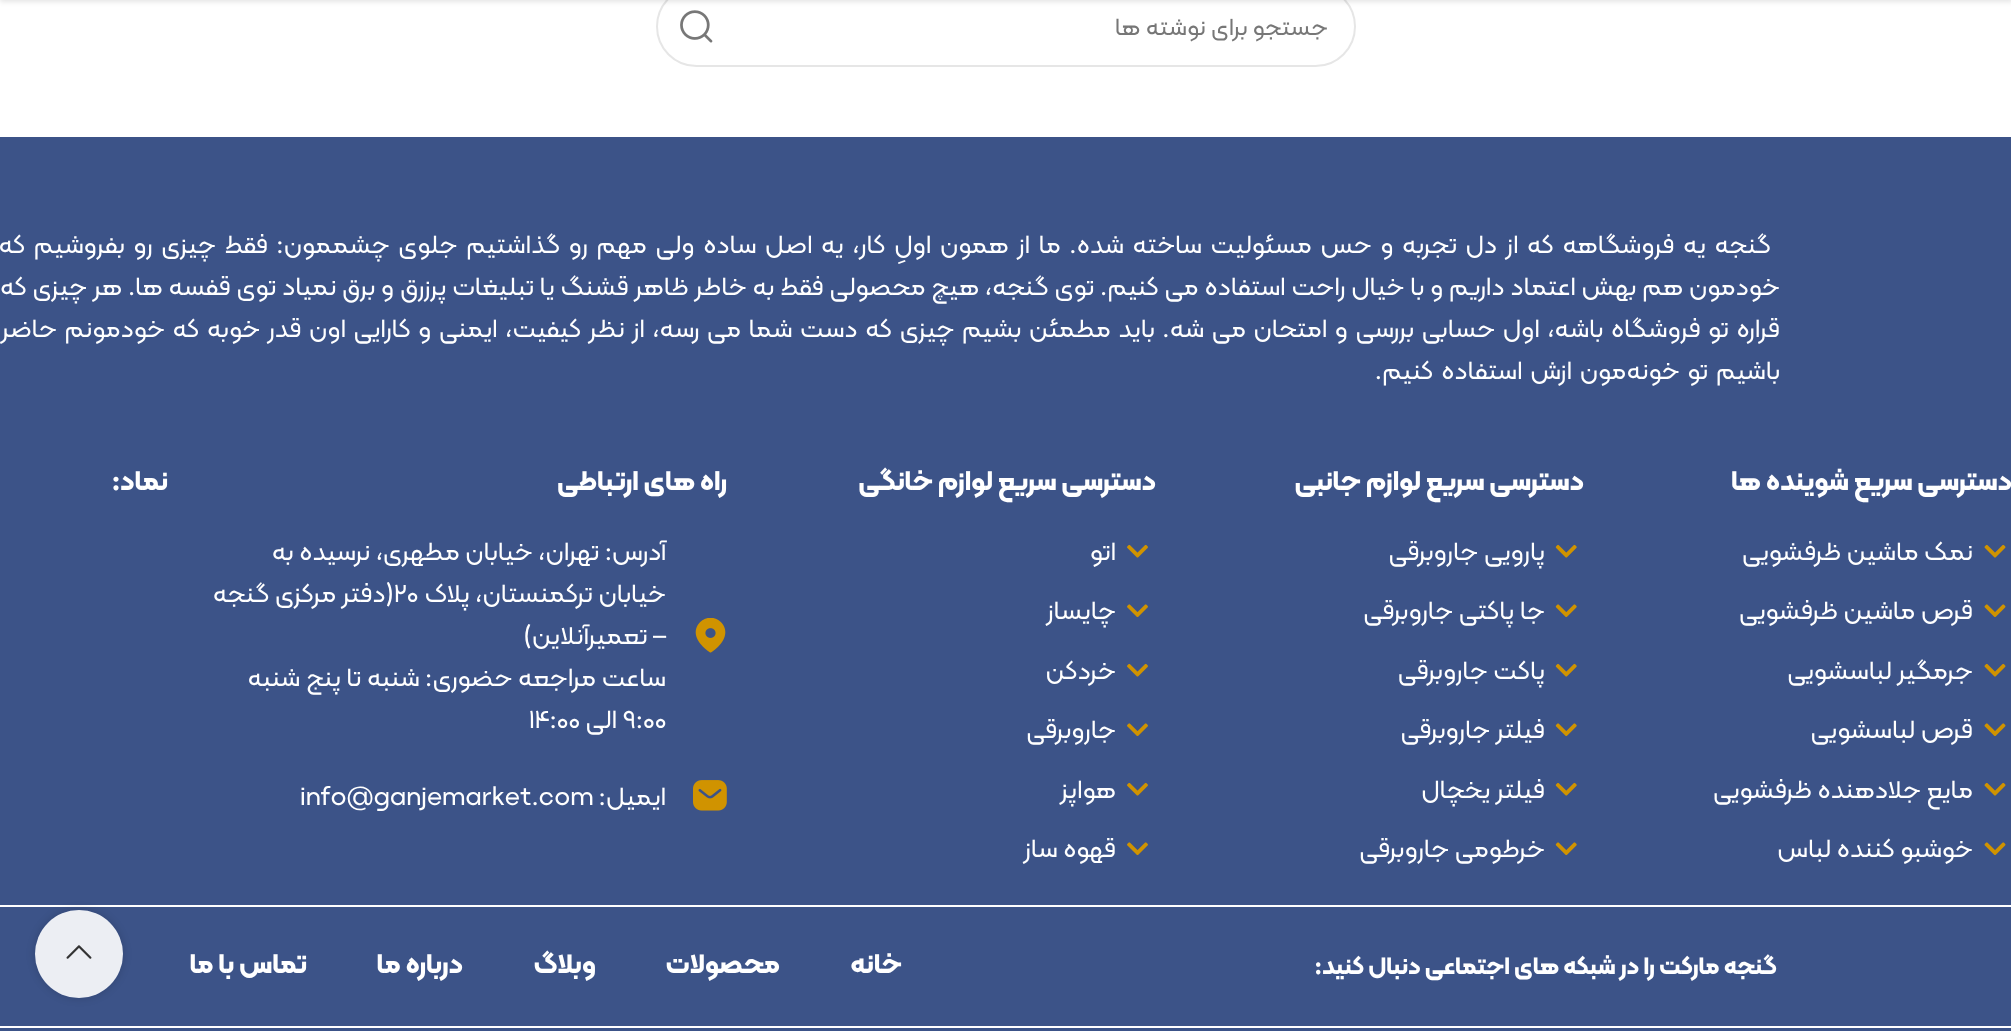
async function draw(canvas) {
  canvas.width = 2011
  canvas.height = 1031
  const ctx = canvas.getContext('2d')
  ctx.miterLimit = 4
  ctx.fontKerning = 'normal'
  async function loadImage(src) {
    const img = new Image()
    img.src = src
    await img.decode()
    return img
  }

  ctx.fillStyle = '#fff'
  ctx.fillRect(0, 0, 2011, 1031)
  ctx.beginPath()
  ctx.roundRect(657, -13, 698, 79, 39.5)
  ctx.strokeStyle = '#e6e6e6'
  ctx.lineWidth = 2
  ctx.stroke()
  ctx.drawImage(await loadImage('image0.png'), 680, 10, 33, 33)
  ctx.fillStyle = '#0000001a'
  ctx.filter = 'blur(2.5px)'
  ctx.beginPath()
  ctx.rect(0, -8, 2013, 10)
  ctx.fill()
  ctx.filter = 'none'
  ctx.direction = 'rtl'
  ctx.font = '24.5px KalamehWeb'
  ctx.fillStyle = '#777'
  ctx.fillText('جستجو برای نوشته ها', 1328, 35)
  ctx.fillStyle = '#3c5388'
  ctx.fillRect(0, 137, 2011, 894)
  ctx.wordSpacing = '3px'
  ctx.font = '26.25px KalamehWeb'
  ctx.fillStyle = '#fff'
  ctx.fillText('گنجه یه فروشگاهه که از دل تجربه و حس مسئولیت ساخته شده. ما از همون اولِ کار، یه اصل ساده ولی مهم رو گذاشتیم جلوی چشممون: فقط چیزی رو بفروشیم که', 1771, 253)
  ctx.wordSpacing = '0.2px'
  ctx.fillText('خودمون هم بهش اعتماد داریم و با خیال راحت استفاده می‌ کنیم. توی گنجه، هیچ محصولی فقط به خاطر ظاهر قشنگ یا تبلیغات پرزرق و برق نمیاد توی قفسه‌ ها. هر چیزی که', 1780, 295)
  ctx.wordSpacing = '2px'
  ctx.fillText('قراره تو فروشگاه باشه، اول حسابی بررسی و امتحان می‌ شه. باید مطمئن بشیم چیزی که دست شما می‌ رسه، از نظر کیفیت، ایمنی و کارایی اون‌ قدر خوبه که خودمونم حاضر', 1780, 337)
  ctx.wordSpacing = '2.25px'
  ctx.fillText('باشیم تو خونه‌مون ازش استفاده کنیم.', 1780, 379)
  ctx.wordSpacing = '0px'
  ctx.font = 'bold 28px KalamehWeb'
  ctx.fillText('دسترسی سریع شوینده ها', 2012, 490)
  ctx.drawImage(await loadImage('image1.png'), 1984, 544, 22, 14)
  ctx.font = '26.25px KalamehWeb'
  ctx.fillText('نمک ماشین ظرفشویی', 1973, 560)
  ctx.drawImage(await loadImage('image2.png'), 1984, 604, 22, 13)
  ctx.fillText('قرص ماشین ظرفشویی', 1973, 619)
  ctx.drawImage(await loadImage('image1.png'), 1984, 663, 22, 14)
  ctx.fillText('جرمگیر لباسشویی', 1973, 679)
  ctx.drawImage(await loadImage('image2.png'), 1984, 723, 22, 13)
  ctx.fillText('قرص لباسشویی', 1973, 738)
  ctx.drawImage(await loadImage('image1.png'), 1984, 782, 22, 14)
  ctx.fillText('مایع جلادهنده ظرفشویی', 1973, 798)
  ctx.drawImage(await loadImage('image2.png'), 1984, 842, 22, 13)
  ctx.fillText('خوشبو کننده لباس', 1973, 857)
  ctx.font = 'bold 28px KalamehWeb'
  ctx.fillText('دسترسی سریع لوازم جانبی', 1584, 490)
  ctx.drawImage(await loadImage('image3.png'), 1555, 544, 22, 14)
  ctx.font = '26.25px KalamehWeb'
  ctx.fillText('پارویی جاروبرقی', 1545, 560)
  ctx.drawImage(await loadImage('image4.png'), 1555, 604, 22, 14)
  ctx.fillText('جا پاکتی جاروبرقی', 1545, 619)
  ctx.drawImage(await loadImage('image3.png'), 1555, 663, 22, 14)
  ctx.fillText('پاکت جاروبرقی', 1545, 679)
  ctx.drawImage(await loadImage('image4.png'), 1555, 723, 22, 14)
  ctx.fillText('فیلتر جاروبرقی', 1545, 738)
  ctx.drawImage(await loadImage('image3.png'), 1555, 782, 22, 14)
  ctx.fillText('فیلتر یخچال', 1545, 798)
  ctx.drawImage(await loadImage('image4.png'), 1555, 842, 22, 14)
  ctx.fillText('خرطومی جاروبرقی', 1545, 857)
  ctx.font = 'bold 28px KalamehWeb'
  ctx.fillText('دسترسی سریع لوازم خانگی', 1156, 490)
  ctx.drawImage(await loadImage('image5.png'), 1127, 544, 21, 14)
  ctx.font = '26.25px KalamehWeb'
  ctx.fillText('اتو', 1116, 560)
  ctx.drawImage(await loadImage('image6.png'), 1127, 604, 21, 14)
  ctx.fillText('چایساز', 1116, 619)
  ctx.drawImage(await loadImage('image5.png'), 1127, 663, 21, 14)
  ctx.fillText('خردکن', 1116, 679)
  ctx.drawImage(await loadImage('image6.png'), 1127, 723, 21, 14)
  ctx.fillText('جاروبرقی', 1116, 738)
  ctx.drawImage(await loadImage('image5.png'), 1127, 782, 21, 14)
  ctx.fillText('هواپز', 1116, 798)
  ctx.drawImage(await loadImage('image6.png'), 1127, 842, 21, 14)
  ctx.fillText('قهوه ساز', 1116, 857)
  ctx.font = 'bold 28px KalamehWeb'
  ctx.fillText('راه های ارتباطی', 727, 490)
  ctx.drawImage(await loadImage('image7.png'), 695, 618, 31, 35)
  ctx.font = '26.25px KalamehWeb'
  ctx.fillText('آدرس: تهران، خیابان مطهری، نرسیده به', 666, 560)
  ctx.fillText('خیابان ترکمنستان، پلاک', 666, 602)
  ctx.direction = 'ltr'
  ctx.fillText('۲۰', 394, 602)
  ctx.direction = 'rtl'
  ctx.fillText('(دفتر مرکزی گنجه', 394, 602)
  ctx.fillText('– تعمیرآنلاین)', 666, 644)
  ctx.fillText('ساعت مراجعه حضوری: شنبه تا پنج شنبه', 666, 686)
  ctx.direction = 'ltr'
  ctx.fillText('۹:۰۰', 623, 728)
  ctx.direction = 'rtl'
  ctx.fillText('الی', 617, 728)
  ctx.direction = 'ltr'
  ctx.fillText('۱۴:۰۰', 529, 728)
  ctx.drawImage(await loadImage('image8.png'), 693, 780, 34, 31)
  ctx.direction = 'rtl'
  ctx.fillText('ایمیل:', 666, 805)
  ctx.direction = 'ltr'
  ctx.fillText('info@ganjemarket.com', 300, 805)
  ctx.direction = 'rtl'
  ctx.font = 'bold 28px KalamehWeb'
  ctx.fillText('نماد:', 168, 490)
  ctx.fillRect(0, 905, 2011, 2)
  ctx.fillRect(0, 1026, 2011, 2)
  ctx.font = 'bold 24.5px KalamehWeb'
  ctx.fillText('گنجه مارکت را در شبکه های اجتماعی دنبال کنید:', 1777, 974)
  ctx.font = 'bold 28px KalamehWeb'
  ctx.fillText('خانه', 902, 973)
  ctx.fillText('محصولات', 780, 973)
  ctx.fillText('وبلاگ', 596, 973)
  ctx.fillText('درباره ما', 463, 973)
  ctx.fillText('تماس با ما', 307, 973)
  ctx.save()
  ctx.beginPath()
  ctx.moveTo(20, 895)
  ctx.lineTo(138, 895)
  ctx.lineTo(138, 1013)
  ctx.lineTo(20, 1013)
  ctx.closePath()
  ctx.moveTo(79, 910)
  ctx.bezierCurveTo(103.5, 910, 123, 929.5, 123, 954)
  ctx.bezierCurveTo(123, 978.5, 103.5, 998, 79, 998)
  ctx.bezierCurveTo(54.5, 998, 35, 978.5, 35, 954)
  ctx.bezierCurveTo(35, 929.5, 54.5, 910, 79, 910)
  ctx.closePath()
  ctx.clip('evenodd')
  ctx.fillStyle = '#0000002b'
  ctx.filter = 'blur(4.5px)'
  ctx.beginPath()
  ctx.roundRect(35, 910, 88, 88, 44)
  ctx.fill()
  ctx.filter = 'none'
  ctx.restore()
  ctx.fillStyle = '#ffffffe6'
  ctx.beginPath()
  ctx.arc(79, 954, 44, 0, 2 * Math.PI)
  ctx.fill()
  ctx.drawImage(await loadImage('image9.png'), 66, 945, 26, 14)
}

draw(document.querySelector('canvas'))
